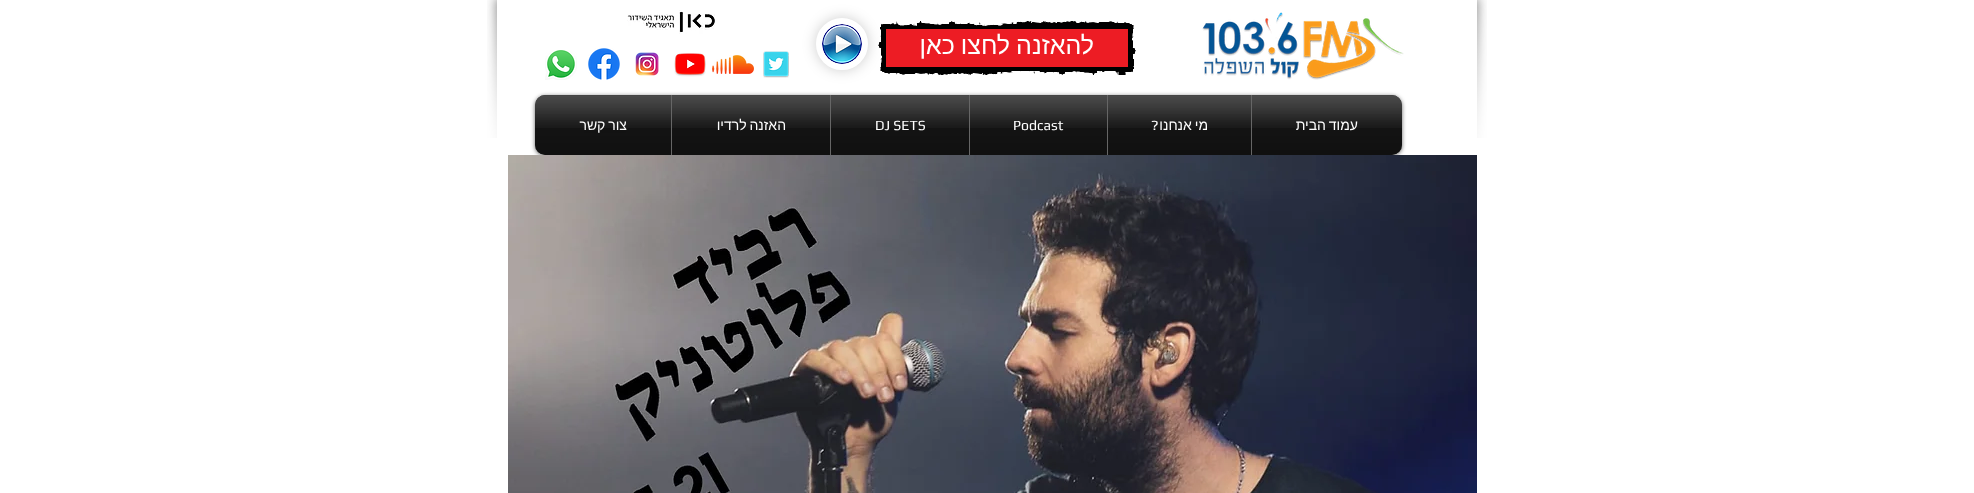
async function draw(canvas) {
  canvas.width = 1974
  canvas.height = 493
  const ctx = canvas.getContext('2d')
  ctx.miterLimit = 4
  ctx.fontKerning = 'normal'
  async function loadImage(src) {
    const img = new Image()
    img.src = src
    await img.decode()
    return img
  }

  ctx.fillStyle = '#fff'
  ctx.fillRect(0, 0, 1974, 493)
  ctx.drawImage(await loadImage('image0.png'), 1477, 0, 10, 138)
  ctx.drawImage(await loadImage('image1.png'), 487, 0, 10, 138)
  ctx.drawImage(await loadImage('image2.png'), 1202, 12, 202, 68)
  ctx.fillStyle = '#00000033'
  ctx.filter = 'blur(7px)'
  ctx.beginPath()
  ctx.roundRect(816, 18, 52, 52, 26)
  ctx.fill()
  ctx.filter = 'none'
  ctx.drawImage(await loadImage('image3.png'), 878, 21, 254, 50)
  ctx.drawImage(await loadImage('image4.png'), 882, 25, 254, 50)
  ctx.fillStyle = '#ed1c24'
  ctx.fillRect(886, 29, 242, 38)
  ctx.wordSpacing = '-1px'
  ctx.direction = 'rtl'
  ctx.font = '25px Liberation Sans'
  ctx.fillStyle = '#fff'
  ctx.fillText('להאזנה לחצו כאן', 1094, 54)
  ctx.beginPath()
  ctx.arc(842, 44, 23, 0, 2 * Math.PI)
  ctx.fill()
  ctx.strokeStyle = '#fff'
  ctx.lineWidth = 6
  ctx.stroke()
  ctx.drawImage(await loadImage('image5.png'), 822, 24, 40, 40)
  ctx.drawImage(await loadImage('image6.png'), 627, 10, 88, 24)
  ctx.drawImage(await loadImage('image7.png'), 763, 51, 26, 27)
  ctx.drawImage(await loadImage('image8.png'), 712, 55, 42, 19)
  ctx.drawImage(await loadImage('image9.png'), 674, 53, 32, 24)
  ctx.drawImage(await loadImage('image10.png'), 635, 52, 24, 24)
  ctx.drawImage(await loadImage('image11.png'), 588, 48, 32, 32)
  ctx.drawImage(await loadImage('image12.png'), 545, 50, 32, 30)
  ctx.save()
  ctx.beginPath()
  ctx.moveTo(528, 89)
  ctx.lineTo(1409, 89)
  ctx.lineTo(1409, 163)
  ctx.lineTo(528, 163)
  ctx.closePath()
  ctx.moveTo(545, 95)
  ctx.lineTo(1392, 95)
  ctx.bezierCurveTo(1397.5, 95, 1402, 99.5, 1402, 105)
  ctx.lineTo(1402, 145)
  ctx.bezierCurveTo(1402, 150.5, 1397.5, 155, 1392, 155)
  ctx.lineTo(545, 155)
  ctx.bezierCurveTo(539.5, 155, 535, 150.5, 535, 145)
  ctx.lineTo(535, 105)
  ctx.bezierCurveTo(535, 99.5, 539.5, 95, 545, 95)
  ctx.closePath()
  ctx.clip('evenodd')
  ctx.fillStyle = '#00000099'
  ctx.filter = 'blur(2px)'
  ctx.beginPath()
  ctx.roundRect(535, 96, 867, 60, 10)
  ctx.fill()
  ctx.filter = 'none'
  ctx.restore()
  ctx.fillStyle = '#000000b8'
  ctx.beginPath()
  ctx.roundRect(535, 95, 867, 60, 10)
  ctx.fill()
  ctx.drawImage(await loadImage('image13.png'), 535, 95, 867, 33)
  ctx.drawImage(await loadImage('image14.png'), 535, 136, 867, 19)
  ctx.beginPath()
  ctx.roundRect(1251, 95, 151, 60, [0, 10, 10, 0])
  ctx.fill()
  ctx.fillStyle = '#666'
  ctx.fillRect(1251, 95, 1, 60)
  ctx.font = '14px Liberation Sans'
  ctx.fillStyle = '#fff'
  ctx.fillText('עמוד הבית', 1358, 130)
  ctx.drawImage(await loadImage('image15.png'), 1252, 95, 150, 33)
  ctx.fillStyle = '#000000b8'
  ctx.fillRect(1108, 95, 143, 60)
  ctx.fillStyle = '#666'
  ctx.fillRect(1107, 95, 1, 60)
  ctx.fillStyle = '#fff'
  ctx.fillText('מי אנחנו', 1208, 130)
  ctx.wordSpacing = '0px'
  ctx.direction = 'ltr'
  ctx.font = '14px Play'
  ctx.fillText('?', 1151, 130)
  ctx.drawImage(await loadImage('image16.png'), 1108, 95, 143, 33)
  ctx.fillStyle = '#000000b8'
  ctx.fillRect(970, 95, 137, 60)
  ctx.fillStyle = '#666'
  ctx.fillRect(969, 95, 1, 60)
  ctx.fillStyle = '#fff'
  ctx.fillText('Podcast', 1013, 130)
  ctx.drawImage(await loadImage('image17.png'), 970, 95, 137, 33)
  ctx.fillStyle = '#000000b8'
  ctx.fillRect(831, 95, 138, 60)
  ctx.fillStyle = '#666'
  ctx.fillRect(830, 95, 1, 60)
  ctx.fillStyle = '#fff'
  ctx.fillText('DJ SETS', 875, 130)
  ctx.drawImage(await loadImage('image18.png'), 831, 95, 138, 33)
  ctx.fillStyle = '#000000b8'
  ctx.fillRect(672, 95, 158, 60)
  ctx.fillStyle = '#666'
  ctx.fillRect(671, 95, 1, 60)
  ctx.wordSpacing = '-1px'
  ctx.direction = 'rtl'
  ctx.font = '14px Liberation Sans'
  ctx.fillStyle = '#fff'
  ctx.fillText('האזנה לרדיו', 786, 130)
  ctx.drawImage(await loadImage('image19.png'), 672, 95, 158, 33)
  ctx.fillStyle = '#000000b8'
  ctx.beginPath()
  ctx.roundRect(535, 95, 136, 60, [10, 0, 0, 10])
  ctx.fill()
  ctx.fillStyle = '#fff'
  ctx.fillText('צור קשר', 627, 130)
  ctx.drawImage(await loadImage('image20.png'), 535, 95, 136, 33)
  ctx.fillStyle = '#00000008'
  ctx.fillRect(584, 128, 42, 5)
  ctx.drawImage(await loadImage('image21.png'), 508, 155, 969, 338)
}

draw(document.querySelector('canvas'))
